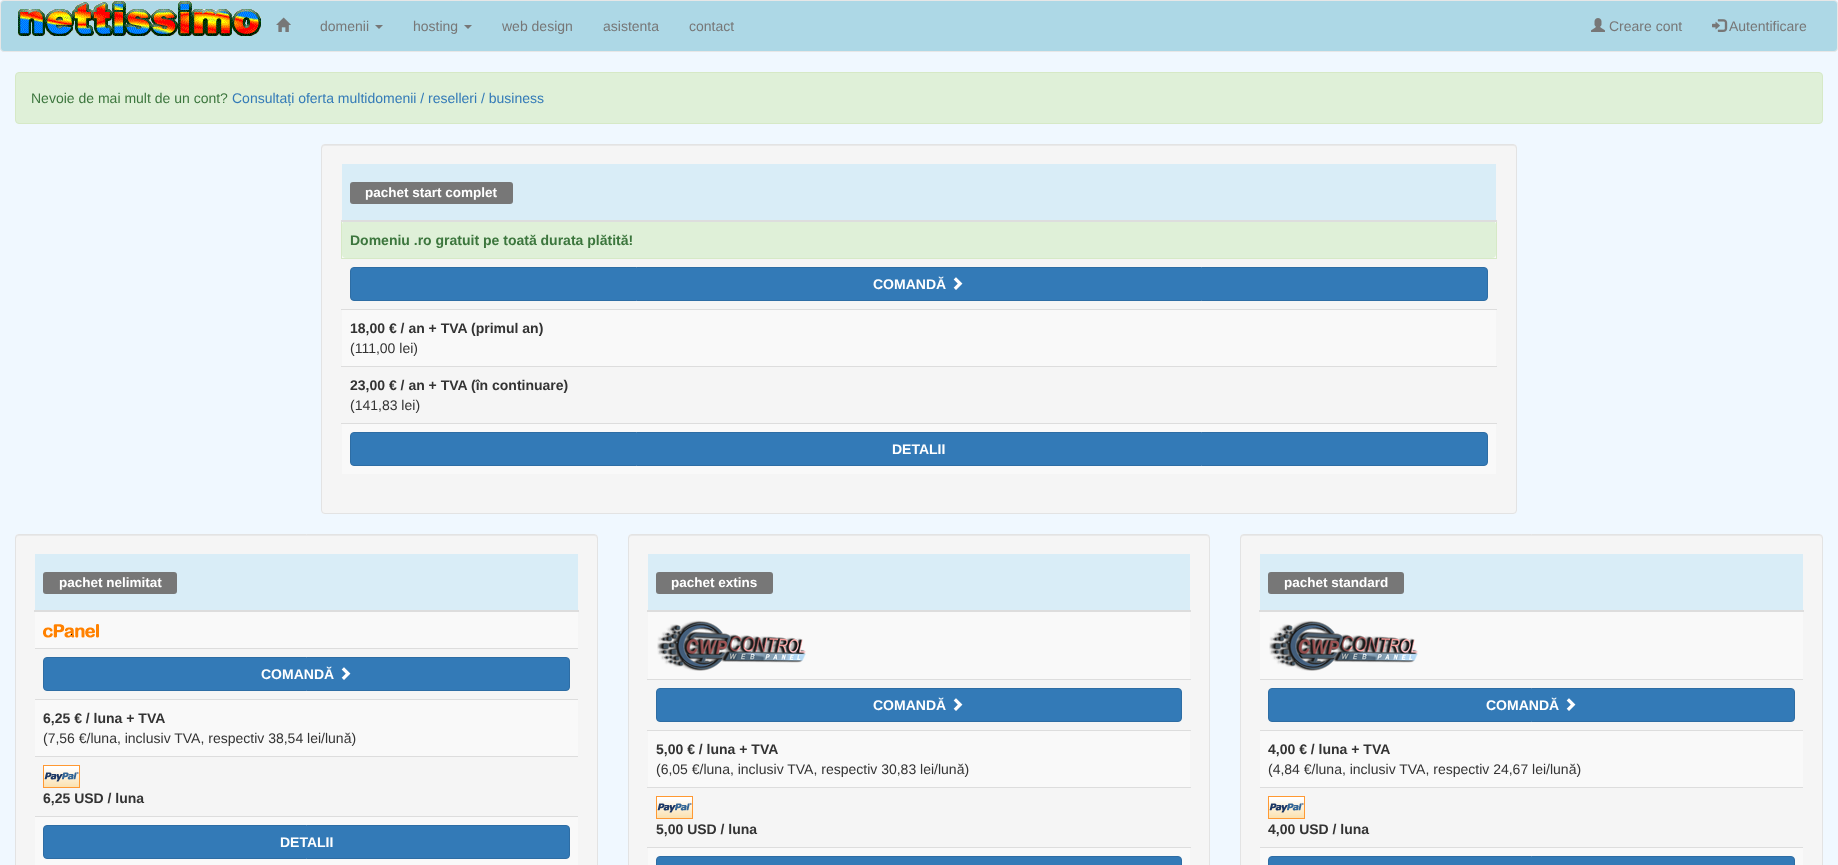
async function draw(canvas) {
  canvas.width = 1838
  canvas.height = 865
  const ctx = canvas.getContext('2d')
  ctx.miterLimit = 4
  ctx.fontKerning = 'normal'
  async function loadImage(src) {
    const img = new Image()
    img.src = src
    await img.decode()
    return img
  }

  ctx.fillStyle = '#f0f8ff'
  ctx.fillRect(0, 0, 1838, 865)
  ctx.fillStyle = '#add8e6'
  ctx.beginPath()
  ctx.roundRect(0.5, 0.5, 1837, 51, 3.5)
  ctx.fill()
  ctx.strokeStyle = '#e7e7e7'
  ctx.stroke()
  ctx.drawImage(await loadImage('image0.png'), 18, 1, 243, 35)
  ctx.drawImage(await loadImage('image1.png'), 276, 17, 15, 15)
  ctx.font = '14px Liberation Sans'
  ctx.fillStyle = '#777'
  ctx.fillText('domenii', 320, 31)
  ctx.beginPath()
  ctx.moveTo(375, 25)
  ctx.lineTo(383, 25)
  ctx.lineTo(379, 29)
  ctx.closePath()
  ctx.fill()
  ctx.fillText('hosting', 413, 31)
  ctx.beginPath()
  ctx.moveTo(464, 25)
  ctx.lineTo(472, 25)
  ctx.lineTo(468, 29)
  ctx.closePath()
  ctx.fill()
  ctx.fillText('web design', 502, 31)
  ctx.fillText('asistenta', 603, 31)
  ctx.fillText('contact', 689, 31)
  ctx.drawImage(await loadImage('image2.png'), 1591, 18, 14, 14)
  ctx.fillText('Creare cont', 1609, 31)
  ctx.drawImage(await loadImage('image3.png'), 1712, 19, 16, 13)
  ctx.fillText('Autentificare', 1729, 31)
  ctx.fillStyle = '#dff0d8'
  ctx.beginPath()
  ctx.roundRect(15.5, 72.5, 1807, 51, 3.5)
  ctx.fill()
  ctx.strokeStyle = '#d6e9c6'
  ctx.stroke()
  ctx.fillStyle = '#3c763d'
  ctx.fillText('Nevoie de mai mult de un cont?', 31, 103)
  ctx.fillStyle = '#337ab7'
  ctx.fillText('Consultați oferta multidomenii / reselleri / business', 232, 103)
  ctx.fillStyle = '#f5f5f5'
  ctx.beginPath()
  ctx.roundRect(321, 144, 1196, 370, 4)
  ctx.fill()
  ctx.fillStyle = '#e9e9e9'
  ctx.beginPath()
  ctx.moveTo(325, 146)
  ctx.lineTo(1513, 146)
  ctx.bezierCurveTo(1515, 146, 1516, 147, 1516, 149)
  ctx.lineTo(1516, 148)
  ctx.bezierCurveTo(1516, 146, 1515, 145, 1513, 145)
  ctx.lineTo(325, 145)
  ctx.bezierCurveTo(323, 145, 322, 146, 322, 148)
  ctx.lineTo(322, 149)
  ctx.bezierCurveTo(322, 147, 323, 146, 325, 146)
  ctx.closePath()
  ctx.fill()
  ctx.beginPath()
  ctx.roundRect(321.5, 144.5, 1195, 369, 3.5)
  ctx.strokeStyle = '#e3e3e3'
  ctx.stroke()
  ctx.fillStyle = '#d9edf7'
  ctx.fillRect(342, 164, 1154, 56)
  ctx.fillStyle = '#f9f9f9'
  ctx.fillRect(342, 222, 1154, 36)
  ctx.fillStyle = '#dff0d8'
  ctx.beginPath()
  ctx.roundRect(342, 221, 1154, 37, 4)
  ctx.fill()
  ctx.fillStyle = '#d6e9c6'
  ctx.fillRect(1496, 220, 1, 39)
  ctx.fillRect(341, 258, 1156, 1)
  ctx.fillRect(341, 220, 1, 39)
  ctx.fillStyle = '#ddd'
  ctx.fillRect(341, 220, 1156, 2)
  ctx.fillStyle = '#777'
  ctx.beginPath()
  ctx.roundRect(350, 182, 163, 22, 3)
  ctx.fill()
  ctx.font = 'bold 13.5px Liberation Sans'
  ctx.fillStyle = '#fff'
  ctx.fillText('pachet start complet', 365, 197)
  ctx.font = 'bold 14px Liberation Sans'
  ctx.fillStyle = '#3c763d'
  ctx.fillText('Domeniu .ro gratuit pe toată durata plătită!', 350, 245)
  ctx.fillStyle = '#337ab7'
  ctx.beginPath()
  ctx.roundRect(350.5, 267.5, 1137, 33, 3.5)
  ctx.fill()
  ctx.strokeStyle = '#2e6da4'
  ctx.stroke()
  ctx.fillStyle = '#fff'
  ctx.fillText('COMANDĂ', 873, 289)
  ctx.drawImage(await loadImage('image4.png'), 953, 277, 10, 13)
  ctx.fillStyle = '#f9f9f9'
  ctx.fillRect(342, 310, 1154, 56)
  ctx.fillStyle = '#ddd'
  ctx.fillRect(341, 309, 1156, 1)
  ctx.fillStyle = '#333'
  ctx.fillText('18,00 € / an + TVA (primul an)', 350, 333)
  ctx.font = '14px Liberation Sans'
  ctx.fillText('(111,00 lei)', 350, 353)
  ctx.fillStyle = '#ddd'
  ctx.fillRect(341, 366, 1156, 1)
  ctx.font = 'bold 14px Liberation Sans'
  ctx.fillStyle = '#333'
  ctx.fillText('23,00 € / an + TVA (în continuare)', 350, 390)
  ctx.font = '14px Liberation Sans'
  ctx.fillText('(141,83 lei)', 350, 410)
  ctx.fillStyle = '#f9f9f9'
  ctx.fillRect(342, 424, 1154, 50)
  ctx.fillStyle = '#ddd'
  ctx.fillRect(341, 423, 1156, 1)
  ctx.fillStyle = '#337ab7'
  ctx.beginPath()
  ctx.roundRect(350.5, 432.5, 1137, 33, 3.5)
  ctx.fill()
  ctx.stroke()
  ctx.font = 'bold 14px Liberation Sans'
  ctx.fillStyle = '#fff'
  ctx.fillText('DETALII', 892, 454)
  ctx.fillStyle = '#f5f5f5'
  ctx.beginPath()
  ctx.roundRect(15, 534, 583, 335, 4)
  ctx.fill()
  ctx.fillStyle = '#e9e9e9'
  ctx.beginPath()
  ctx.moveTo(19, 536)
  ctx.lineTo(594, 536)
  ctx.bezierCurveTo(596, 536, 597, 537, 597, 539)
  ctx.lineTo(597, 538)
  ctx.bezierCurveTo(597, 536, 596, 535, 594, 535)
  ctx.lineTo(19, 535)
  ctx.bezierCurveTo(17, 535, 16, 536, 16, 538)
  ctx.lineTo(16, 539)
  ctx.bezierCurveTo(16, 537, 17, 536, 19, 536)
  ctx.closePath()
  ctx.fill()
  ctx.beginPath()
  ctx.roundRect(15.5, 534.5, 582, 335, 3.5)
  ctx.strokeStyle = '#e3e3e3'
  ctx.stroke()
  ctx.fillStyle = '#d9edf7'
  ctx.fillRect(35, 554, 543, 56)
  ctx.fillStyle = '#ddd'
  ctx.fillRect(34, 610, 545, 2)
  ctx.fillStyle = '#777'
  ctx.beginPath()
  ctx.roundRect(43, 572, 134, 22, 3)
  ctx.fill()
  ctx.font = 'bold 13.5px Liberation Sans'
  ctx.fillStyle = '#fff'
  ctx.fillText('pachet nelimitat', 59, 587)
  ctx.fillStyle = '#f9f9f9'
  ctx.fillRect(35, 612, 543, 36)
  ctx.drawImage(await loadImage('image5.png'), 43, 624, 56, 14)
  ctx.fillStyle = '#ddd'
  ctx.fillRect(35, 648, 543, 1)
  ctx.fillStyle = '#337ab7'
  ctx.beginPath()
  ctx.roundRect(43.5, 657.5, 526, 33, 3.5)
  ctx.fill()
  ctx.strokeStyle = '#2e6da4'
  ctx.stroke()
  ctx.font = 'bold 14px Liberation Sans'
  ctx.fillStyle = '#fff'
  ctx.fillText('COMANDĂ', 261, 679)
  ctx.drawImage(await loadImage('image4.png'), 341, 667, 10, 13)
  ctx.fillStyle = '#f9f9f9'
  ctx.fillRect(35, 700, 543, 56)
  ctx.fillStyle = '#ddd'
  ctx.fillRect(35, 699, 543, 1)
  ctx.fillStyle = '#333'
  ctx.fillText('6,25 € / luna + TVA', 43, 723)
  ctx.font = '14px Liberation Sans'
  ctx.fillText('(7,56 €/luna, inclusiv TVA, respectiv 38,54 lei/lună)', 43, 743)
  ctx.fillStyle = '#ddd'
  ctx.fillRect(35, 756, 543, 1)
  ctx.drawImage(await loadImage('image6.png'), 43, 765, 37, 23)
  ctx.font = 'bold 14px Liberation Sans'
  ctx.fillStyle = '#333'
  ctx.fillText('6,25 USD / luna', 43, 803)
  ctx.fillStyle = '#f9f9f9'
  ctx.fillRect(35, 817, 543, 48)
  ctx.fillStyle = '#ddd'
  ctx.fillRect(35, 816, 543, 1)
  ctx.fillStyle = '#337ab7'
  ctx.beginPath()
  ctx.roundRect(43.5, 825.5, 526, 33, 3.5)
  ctx.fill()
  ctx.stroke()
  ctx.fillStyle = '#fff'
  ctx.fillText('DETALII', 280, 847)
  ctx.fillStyle = '#f5f5f5'
  ctx.beginPath()
  ctx.roundRect(628, 534, 582, 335, 4)
  ctx.fill()
  ctx.fillStyle = '#e9e9e9'
  ctx.beginPath()
  ctx.moveTo(632, 536)
  ctx.lineTo(1206, 536)
  ctx.bezierCurveTo(1208, 536, 1209, 537, 1209, 539)
  ctx.lineTo(1209, 538)
  ctx.bezierCurveTo(1209, 536, 1208, 535, 1206, 535)
  ctx.lineTo(632, 535)
  ctx.bezierCurveTo(630, 535, 629, 536, 629, 538)
  ctx.lineTo(629, 539)
  ctx.bezierCurveTo(629, 537, 630, 536, 632, 536)
  ctx.closePath()
  ctx.fill()
  ctx.beginPath()
  ctx.roundRect(628.5, 534.5, 581, 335, 3.5)
  ctx.strokeStyle = '#e3e3e3'
  ctx.stroke()
  ctx.fillStyle = '#d9edf7'
  ctx.fillRect(648, 554, 542, 56)
  ctx.fillStyle = '#ddd'
  ctx.fillRect(647, 610, 544, 2)
  ctx.fillStyle = '#777'
  ctx.beginPath()
  ctx.roundRect(656, 572, 117, 22, 3)
  ctx.fill()
  ctx.font = 'bold 13.5px Liberation Sans'
  ctx.fillStyle = '#fff'
  ctx.fillText('pachet extins', 671, 587)
  ctx.fillStyle = '#f9f9f9'
  ctx.fillRect(648, 612, 542, 67)
  ctx.drawImage(await loadImage('image7.png'), 657, 620, 149, 51)
  ctx.fillStyle = '#ddd'
  ctx.fillRect(647, 679, 544, 1)
  ctx.fillStyle = '#337ab7'
  ctx.beginPath()
  ctx.roundRect(656.5, 688.5, 525, 33, 3.5)
  ctx.fill()
  ctx.strokeStyle = '#2e6da4'
  ctx.stroke()
  ctx.font = 'bold 14px Liberation Sans'
  ctx.fillStyle = '#fff'
  ctx.fillText('COMANDĂ', 873, 710)
  ctx.drawImage(await loadImage('image4.png'), 953, 698, 10, 13)
  ctx.fillStyle = '#f9f9f9'
  ctx.fillRect(648, 731, 542, 56)
  ctx.fillStyle = '#ddd'
  ctx.fillRect(647, 730, 544, 1)
  ctx.fillStyle = '#333'
  ctx.fillText('5,00 € / luna + TVA', 656, 754)
  ctx.font = '14px Liberation Sans'
  ctx.fillText('(6,05 €/luna, inclusiv TVA, respectiv 30,83 lei/lună)', 656, 774)
  ctx.fillStyle = '#ddd'
  ctx.fillRect(647, 787, 544, 1)
  ctx.drawImage(await loadImage('image6.png'), 656, 796, 37, 23)
  ctx.font = 'bold 14px Liberation Sans'
  ctx.fillStyle = '#333'
  ctx.fillText('5,00 USD / luna', 656, 834)
  ctx.fillStyle = '#f9f9f9'
  ctx.fillRect(648, 848, 542, 17)
  ctx.fillStyle = '#ddd'
  ctx.fillRect(647, 847, 544, 1)
  ctx.fillStyle = '#337ab7'
  ctx.beginPath()
  ctx.roundRect(656.5, 856.5, 525, 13, 3.5)
  ctx.fill()
  ctx.stroke()
  ctx.fillStyle = '#f5f5f5'
  ctx.beginPath()
  ctx.roundRect(1240, 534, 583, 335, 4)
  ctx.fill()
  ctx.fillStyle = '#e9e9e9'
  ctx.beginPath()
  ctx.moveTo(1244, 536)
  ctx.lineTo(1819, 536)
  ctx.bezierCurveTo(1821, 536, 1822, 537, 1822, 539)
  ctx.lineTo(1822, 538)
  ctx.bezierCurveTo(1822, 536, 1821, 535, 1819, 535)
  ctx.lineTo(1244, 535)
  ctx.bezierCurveTo(1242, 535, 1241, 536, 1241, 538)
  ctx.lineTo(1241, 539)
  ctx.bezierCurveTo(1241, 537, 1242, 536, 1244, 536)
  ctx.closePath()
  ctx.fill()
  ctx.beginPath()
  ctx.roundRect(1240.5, 534.5, 582, 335, 3.5)
  ctx.strokeStyle = '#e3e3e3'
  ctx.stroke()
  ctx.fillStyle = '#d9edf7'
  ctx.fillRect(1260, 554, 543, 56)
  ctx.fillStyle = '#ddd'
  ctx.fillRect(1259, 610, 545, 2)
  ctx.fillStyle = '#777'
  ctx.beginPath()
  ctx.roundRect(1268, 572, 136, 22, 3)
  ctx.fill()
  ctx.font = 'bold 13.5px Liberation Sans'
  ctx.fillStyle = '#fff'
  ctx.fillText('pachet standard', 1284, 587)
  ctx.fillStyle = '#f9f9f9'
  ctx.fillRect(1260, 612, 543, 67)
  ctx.drawImage(await loadImage('image7.png'), 1269, 620, 149, 51)
  ctx.fillStyle = '#ddd'
  ctx.fillRect(1260, 679, 543, 1)
  ctx.fillStyle = '#337ab7'
  ctx.beginPath()
  ctx.roundRect(1268.5, 688.5, 526, 33, 3.5)
  ctx.fill()
  ctx.strokeStyle = '#2e6da4'
  ctx.stroke()
  ctx.font = 'bold 14px Liberation Sans'
  ctx.fillStyle = '#fff'
  ctx.fillText('COMANDĂ', 1486, 710)
  ctx.drawImage(await loadImage('image4.png'), 1566, 698, 10, 13)
  ctx.fillStyle = '#f9f9f9'
  ctx.fillRect(1260, 731, 543, 56)
  ctx.fillStyle = '#ddd'
  ctx.fillRect(1260, 730, 543, 1)
  ctx.fillStyle = '#333'
  ctx.fillText('4,00 € / luna + TVA', 1268, 754)
  ctx.font = '14px Liberation Sans'
  ctx.fillText('(4,84 €/luna, inclusiv TVA, respectiv 24,67 lei/lună)', 1268, 774)
  ctx.fillStyle = '#ddd'
  ctx.fillRect(1260, 787, 543, 1)
  ctx.drawImage(await loadImage('image6.png'), 1268, 796, 37, 23)
  ctx.font = 'bold 14px Liberation Sans'
  ctx.fillStyle = '#333'
  ctx.fillText('4,00 USD / luna', 1268, 834)
  ctx.fillStyle = '#f9f9f9'
  ctx.fillRect(1260, 848, 543, 17)
  ctx.fillStyle = '#ddd'
  ctx.fillRect(1260, 847, 543, 1)
  ctx.fillStyle = '#337ab7'
  ctx.beginPath()
  ctx.roundRect(1268.5, 856.5, 526, 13, 3.5)
  ctx.fill()
  ctx.stroke()
}

draw(document.querySelector('canvas'))
